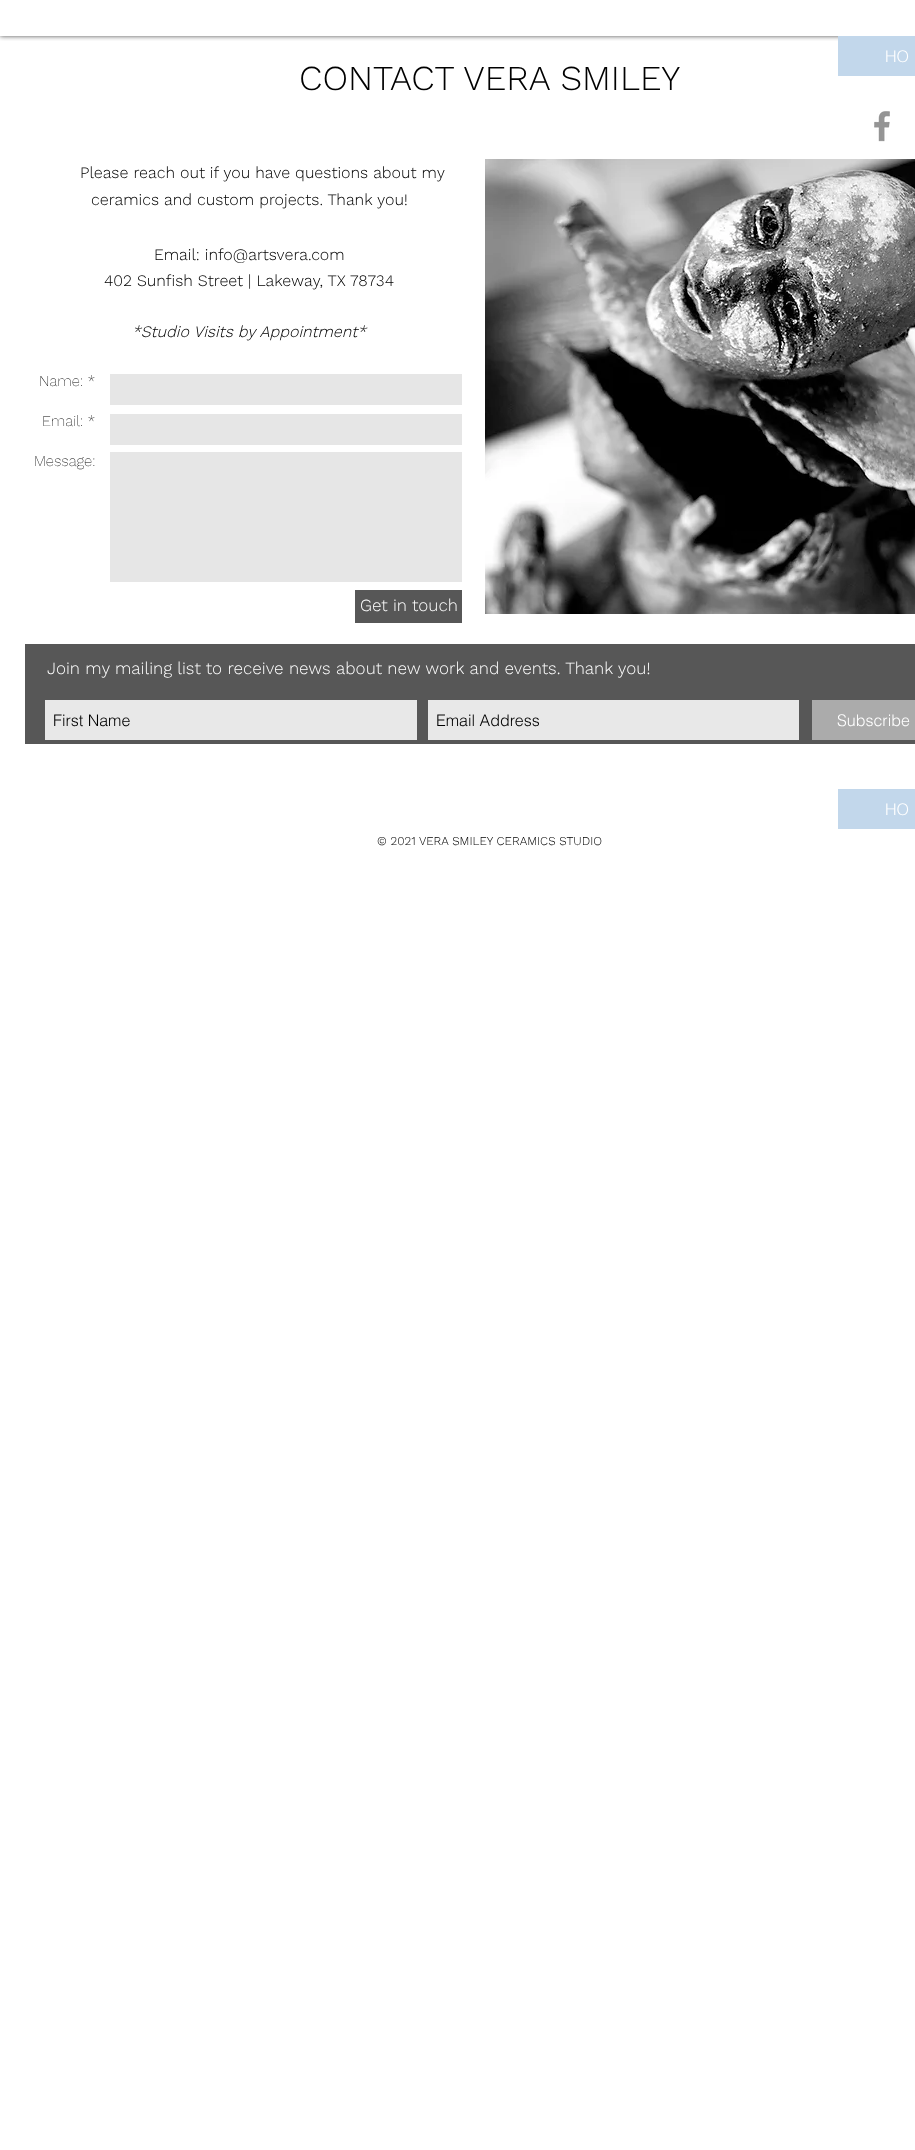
async function draw(canvas) {
  canvas.width = 915
  canvas.height = 2150
  const ctx = canvas.getContext('2d')
  ctx.miterLimit = 4
  ctx.fontKerning = 'normal'
  async function loadImage(src) {
    const img = new Image()
    img.src = src
    await img.decode()
    return img
  }

  ctx.fillStyle = '#fff'
  ctx.fillRect(0, 0, 915, 2150)
  ctx.save()
  ctx.beginPath()
  ctx.rect(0, 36, 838, 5)
  ctx.clip()
  ctx.fillStyle = '#000000b3'
  ctx.filter = 'blur(2.5px)'
  ctx.beginPath()
  ctx.rect(0, 0, 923, 36)
  ctx.fill()
  ctx.filter = 'none'
  ctx.restore()
  ctx.fillStyle = '#c2d7eb'
  ctx.fillRect(838, 36, 77, 40)
  ctx.font = '300 16px helvetica'
  ctx.fillStyle = '#fff'
  ctx.fillText('HO', 885, 62)
  ctx.font = '300 35px Work Sans'
  ctx.fillStyle = '#000'
  ctx.fillText('CONTACT VERA SMILEY', 299, 90)
  ctx.drawImage(await loadImage('image0.png'), 874, 111, 16, 31)
  ctx.font = '300 16px Work Sans'
  ctx.fillText('Please reach out if you have questions about my', 80, 178)
  ctx.fillText('ceramics and custom projects. Thank you!', 91, 205)
  ctx.fillText('Email: info@artsvera.com', 154, 260)
  ctx.fillText('402 Sunfish Street | Lakeway, TX 78734', 104, 286)
  ctx.font = 'italic 300 16px Work Sans'
  ctx.fillText('*Studio Visits by Appointment*', 132, 337)
  ctx.drawImage(await loadImage('image1.png'), 485, 159, 430, 455)
  ctx.font = '200 15px Work Sans'
  ctx.fillText('Name: *', 39, 386)
  ctx.fillStyle = '#e6e6e6'
  ctx.fillRect(110, 374, 352, 31)
  ctx.fillStyle = '#000'
  ctx.fillText('Email: *', 42, 426)
  ctx.fillStyle = '#e6e6e6'
  ctx.fillRect(110, 414, 352, 31)
  ctx.fillStyle = '#000'
  ctx.fillText('Message:', 34, 466)
  ctx.fillStyle = '#e6e6e6'
  ctx.fillRect(110, 452, 352, 130)
  ctx.fillStyle = '#575757'
  ctx.fillRect(355, 590, 107, 33)
  ctx.font = '300 17px Work Sans'
  ctx.fillStyle = '#fff'
  ctx.fillText('Get in touch', 360, 611)
  ctx.fillStyle = '#575757'
  ctx.fillRect(25, 644, 890, 100)
  ctx.fillStyle = '#fff'
  ctx.fillText('Join my mailing list to receive news about new work and events. Thank you!', 47, 674)
  ctx.fillStyle = '#e8e8e8'
  ctx.fillRect(45, 700, 372, 40)
  ctx.font = '300 16px helvetica'
  ctx.fillStyle = '#000'
  ctx.fillText('First Name', 53, 726)
  ctx.fillStyle = '#e8e8e8'
  ctx.fillRect(428, 700, 371, 40)
  ctx.fillStyle = '#000'
  ctx.fillText('Email Address', 436, 726)
  ctx.fillStyle = '#ababab'
  ctx.fillRect(812, 700, 103, 40)
  ctx.fillStyle = '#fff'
  ctx.fillText('Subscribe', 837, 726)
  ctx.fillStyle = '#c2d7eb'
  ctx.fillRect(838, 789, 77, 40)
  ctx.fillStyle = '#fff'
  ctx.fillText('HO', 885, 815)
  ctx.font = '300 12px Work Sans'
  ctx.fillStyle = '#000'
  ctx.fillText('© 2021 VERA SMILEY CERAMICS STUDIO', 377, 845)
}

draw(document.querySelector('canvas'))
